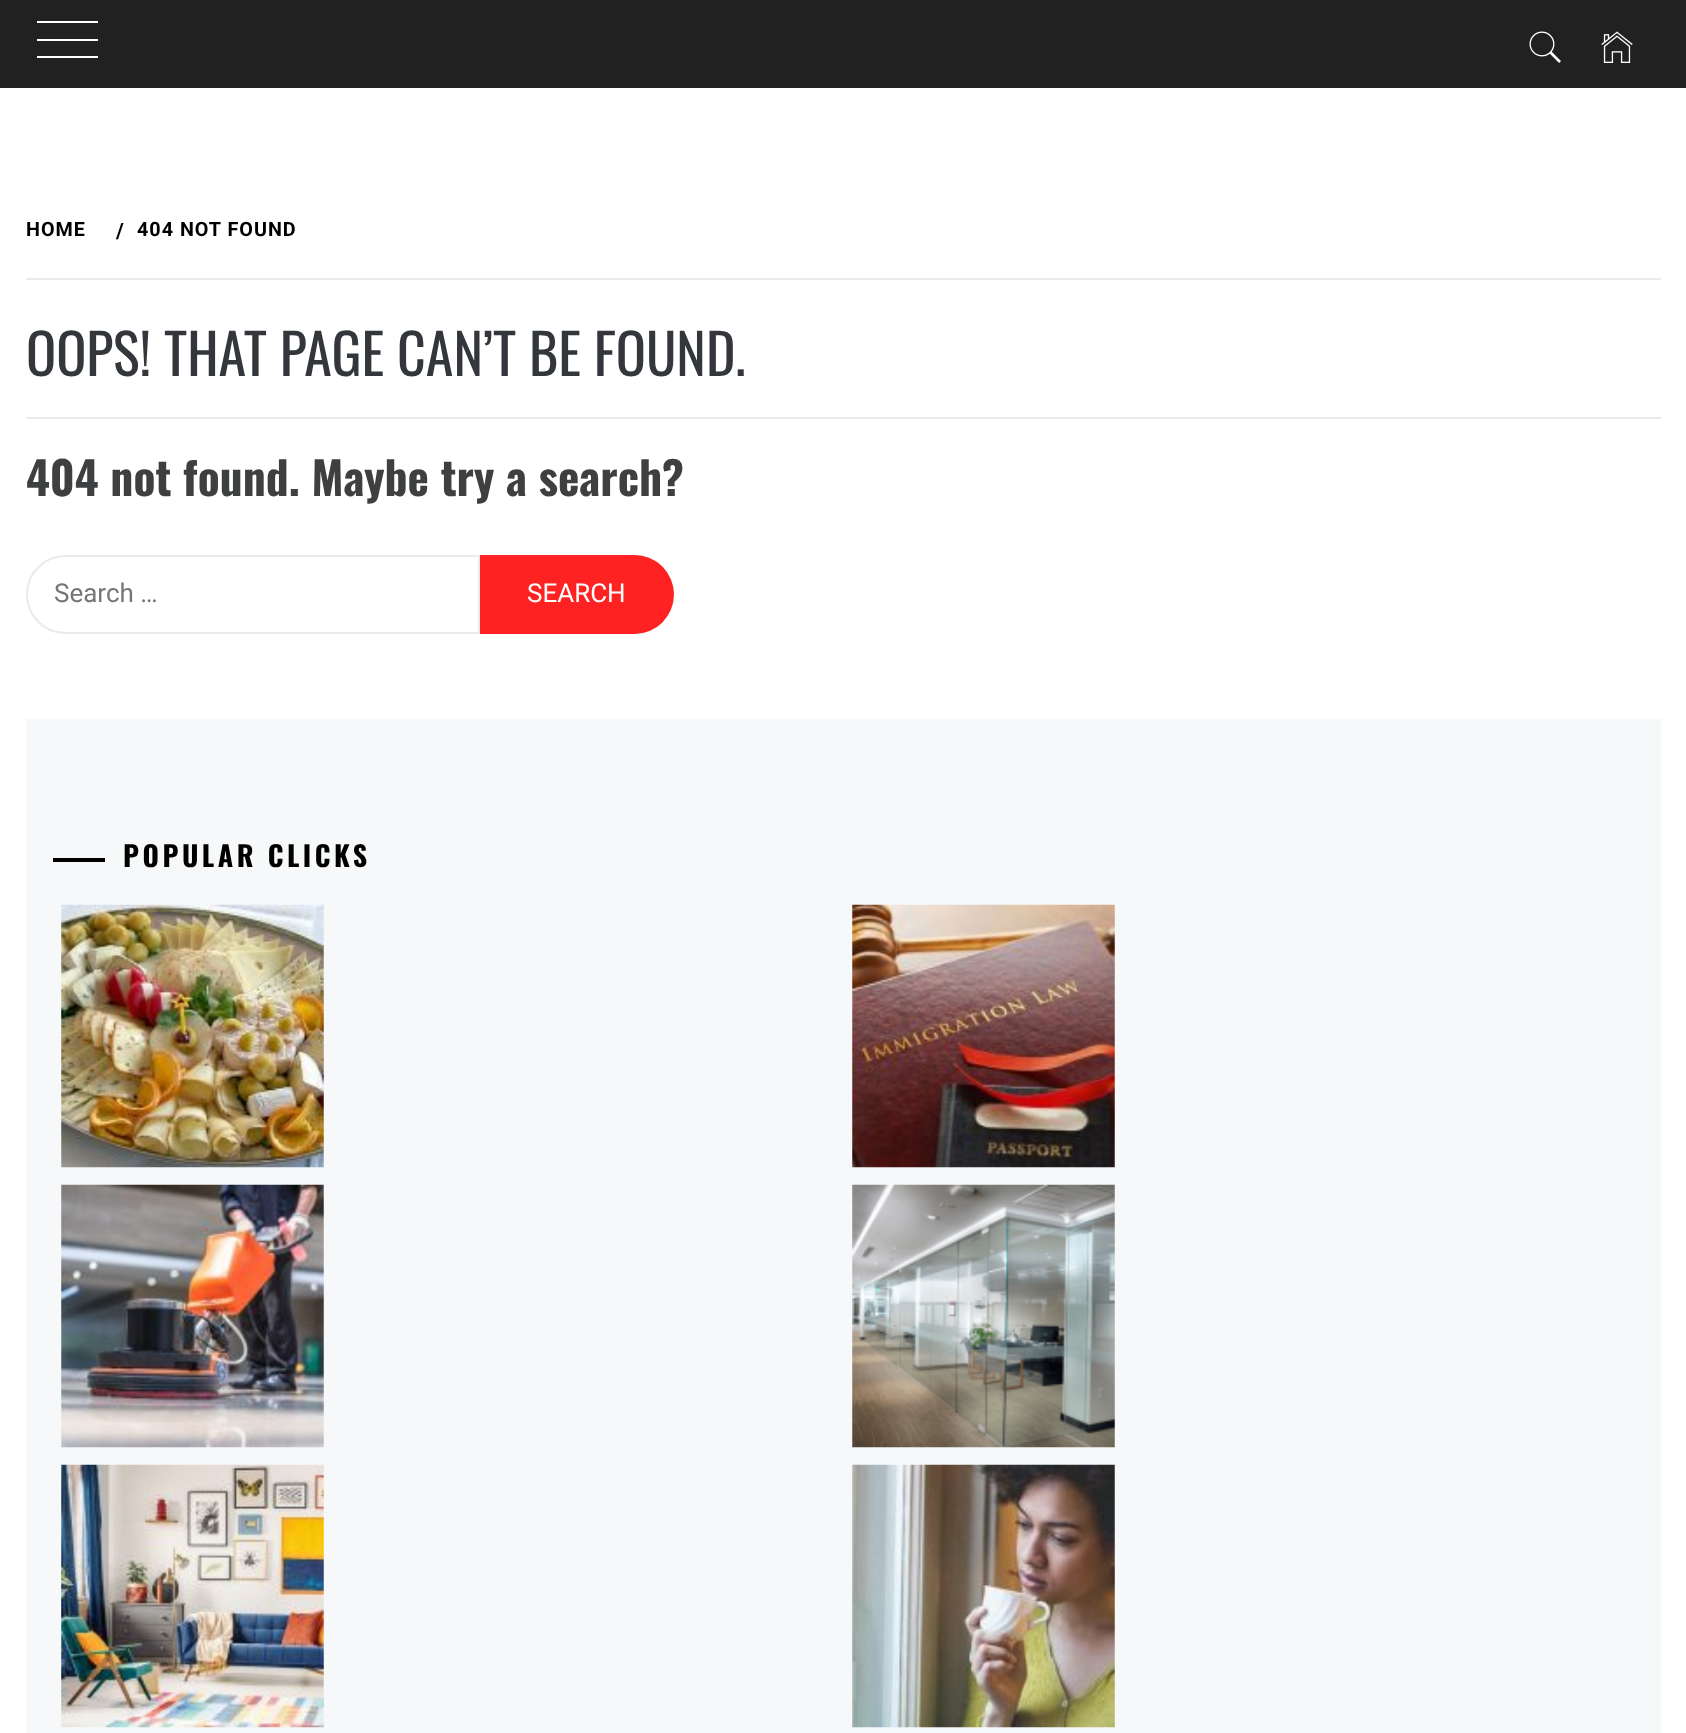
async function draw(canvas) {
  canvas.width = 1686
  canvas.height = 1733
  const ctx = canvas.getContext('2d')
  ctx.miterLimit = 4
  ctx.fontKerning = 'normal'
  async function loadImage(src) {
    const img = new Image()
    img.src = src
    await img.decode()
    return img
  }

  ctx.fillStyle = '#fff'
  ctx.fillRect(0, 0, 1686, 1733)
  ctx.fillStyle = '#212121'
  ctx.fillRect(0, 0, 1686, 88)
  ctx.fillStyle = '#fff'
  ctx.fillRect(37, 21, 61, 2)
  ctx.fillRect(37, 39, 61, 2)
  ctx.fillRect(37, 56, 61, 2)
  ctx.drawImage(await loadImage('image0.png'), 1529, 31, 32, 32)
  ctx.drawImage(await loadImage('image1.png'), 1601, 31, 32, 32)
  ctx.fillStyle = '#eaeaea'
  ctx.fillRect(26, 417, 1635, 2)
  ctx.fillRect(26, 278, 1635, 2)
  ctx.letterSpacing = '1px'
  ctx.font = 'bold 19.75px Roboto'
  ctx.fillStyle = '#000'
  ctx.fillText('HOME', 26, 236)
  ctx.font = 'bold 21px Roboto'
  ctx.fillText('/', 116, 238)
  ctx.font = 'bold 19.75px Roboto'
  ctx.fillText('404 NOT FOUND', 137, 236)
  ctx.letterSpacing = '0px'
  ctx.font = '56px Oswald'
  ctx.fillStyle = '#33363b'
  ctx.fillText('OOPS! THAT PAGE CAN’T BE FOUND.', 26, 376)
  ctx.font = 'bold 45.5px Oswald'
  ctx.fillStyle = '#3e3f40'
  ctx.fillText('404 not found. Maybe try a search?', 26, 496)
  ctx.beginPath()
  ctx.roundRect(27, 556, 452, 77, [38.5, 0, 0, 38.5])
  ctx.strokeStyle = '#eaeaea'
  ctx.lineWidth = 2
  ctx.stroke()
  ctx.font = '26px Roboto'
  ctx.fillStyle = '#757575'
  ctx.fillText('Search …', 54, 602)
  ctx.fillStyle = '#f22'
  ctx.beginPath()
  ctx.roundRect(480, 555, 194, 79, [0, 39.5, 39.5, 0])
  ctx.fill()
  ctx.fillStyle = '#fff'
  ctx.fillText('SEARCH', 527, 602)
  ctx.fillStyle = '#f6f8f9'
  ctx.fillRect(26, 719, 1635, 1014)
  ctx.fillStyle = '#000'
  ctx.fillRect(53, 858, 52, 4)
  ctx.letterSpacing = '3.5px'
  ctx.font = 'bold 28px Oswald'
  ctx.fillText('POPULAR CLICKS', 123, 867)
  ctx.drawImage(await loadImage('image2.png'), 61, 904, 263, 264)
  ctx.drawImage(await loadImage('image3.png'), 852, 904, 263, 264)
  ctx.drawImage(await loadImage('image4.png'), 61, 1184, 263, 264)
  ctx.drawImage(await loadImage('image5.png'), 852, 1184, 263, 264)
  ctx.drawImage(await loadImage('image6.png'), 61, 1464, 263, 264)
  ctx.drawImage(await loadImage('image7.png'), 852, 1464, 263, 264)
}

draw(document.querySelector('canvas'))
